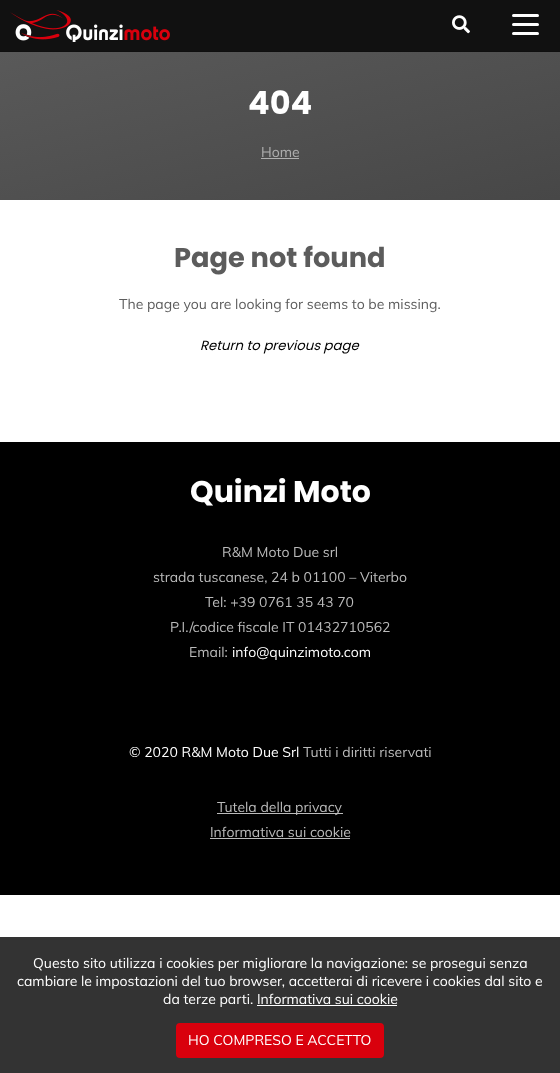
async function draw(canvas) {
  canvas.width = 560
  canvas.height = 1073
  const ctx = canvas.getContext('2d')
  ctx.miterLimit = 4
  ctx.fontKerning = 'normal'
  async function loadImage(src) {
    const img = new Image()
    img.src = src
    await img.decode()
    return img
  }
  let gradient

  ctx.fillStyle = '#fff'
  ctx.fillRect(0, 0, 560, 1073)
  ctx.fillStyle = '#111'
  ctx.fillRect(0, 0, 560, 51)
  ctx.drawImage(await loadImage('image0.png'), 10, 10, 160, 32)
  ctx.drawImage(await loadImage('image1.png'), 452, 15, 18, 19)
  ctx.fillStyle = '#fff'
  ctx.beginPath()
  ctx.roundRect(512, 23, 27, 3, 1.5)
  ctx.fill()
  ctx.beginPath()
  ctx.roundRect(512, 14, 27, 3, 1.5)
  ctx.fill()
  ctx.beginPath()
  ctx.roundRect(512, 32, 27, 3, 1.5)
  ctx.fill()
  ctx.fillStyle = '#0f0f0f'
  ctx.fillRect(0, 51, 560, 1)
  gradient = ctx.createLinearGradient(317, 264, 243, -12)
  gradient.addColorStop(0, '#474747')
  gradient.addColorStop(1, '#595959')
  ctx.fillStyle = gradient
  ctx.fillRect(0, 52, 560, 148)
  ctx.font = 'bold 32px Poppins'
  ctx.fillStyle = '#fff'
  ctx.fillText('404', 248, 114)
  ctx.font = '14px Muli'
  ctx.fillStyle = '#afafaf'
  ctx.fillText('Home', 261, 157)
  ctx.fillRect(261, 158, 38, 1)
  ctx.font = 'bold 27.25px Poppins'
  ctx.fillStyle = '#5c5c5c'
  ctx.fillText('Page not found', 174, 267)
  ctx.font = '14px Muli'
  ctx.fillText('The page you are looking for seems to be missing.', 119, 309)
  ctx.font = 'italic 13.25px Poppins'
  ctx.fillStyle = '#000'
  ctx.fillText('Return to previous page', 200, 350)
  ctx.fillRect(0, 442, 560, 453)
  ctx.font = 'bold 30px Poppins'
  ctx.fillStyle = '#fff'
  ctx.fillText('Quinzi Moto', 190, 502)
  ctx.font = '14px Muli'
  ctx.fillStyle = '#bbb'
  ctx.fillText('R&M Moto Due srl', 222, 557)
  ctx.fillText('strada tuscanese, 24 b 01100 – Viterbo', 153, 582)
  ctx.fillText('Tel: +39 0761 35 43 70', 205, 607)
  ctx.fillText('P.I./codice fiscale IT 01432710562', 170, 632)
  ctx.fillText('Email:', 189, 657)
  ctx.fillStyle = '#fff'
  ctx.fillText('info@quinzimoto.com', 232, 657)
  ctx.fillText('© 2020 R&M Moto Due Srl', 129, 757)
  ctx.fillStyle = '#bbb'
  ctx.fillText('Tutti i diritti riservati', 303, 757)
  ctx.fillRect(217, 813, 126, 1)
  ctx.fillText('Tutela della privacy', 217, 812)
  ctx.fillText('Informativa sui cookie', 210, 837)
  ctx.fillRect(210, 838, 140, 1)
  ctx.fillStyle = '#333'
  ctx.fillRect(0, 937, 560, 136)
  ctx.fillStyle = '#fff'
  ctx.fillText('Questo sito utilizza i cookies per migliorare la navigazione: se prosegui senza', 33, 968)
  ctx.fillText('cambiare le impostazioni del tuo browser, accetterai di ricevere i cookies dal sito e', 17, 986)
  ctx.fillText('da terze parti. Informativa sui cookie', 163, 1004)
  ctx.fillRect(257, 1005, 140, 1)
  ctx.fillStyle = '#d9000d'
  ctx.beginPath()
  ctx.roundRect(177, 1024, 206, 33, 3)
  ctx.fill()
  ctx.strokeStyle = '#d9000d'
  ctx.lineWidth = 2
  ctx.stroke()
  ctx.fillStyle = '#fff'
  ctx.fillText('HO COMPRESO E ACCETTO', 188, 1045)
}

draw(document.querySelector('canvas'))
